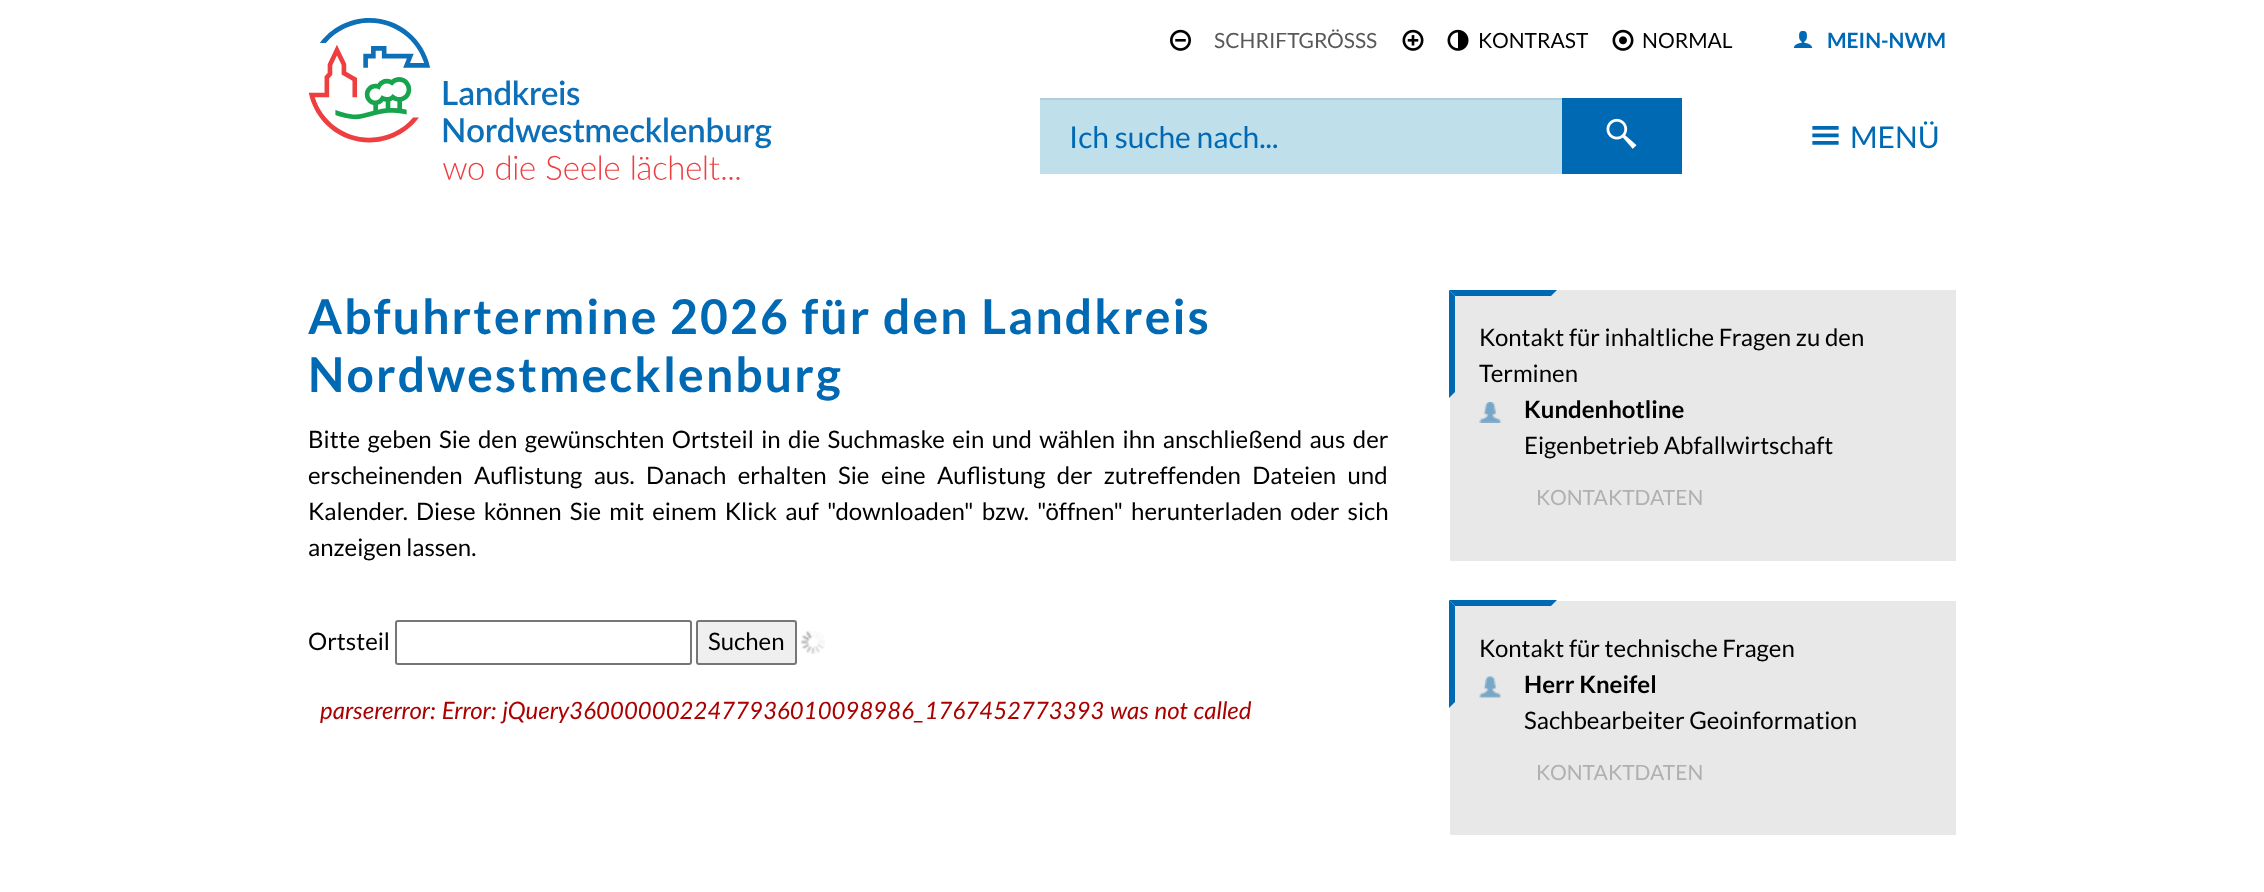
async function draw(canvas) {
  canvas.width = 2264
  canvas.height = 892
  const ctx = canvas.getContext('2d')
  ctx.miterLimit = 4
  ctx.fontKerning = 'normal'
  async function loadImage(src) {
    const img = new Image()
    img.src = src
    await img.decode()
    return img
  }

  ctx.fillStyle = '#fff'
  ctx.fillRect(0, 0, 2264, 892)
  ctx.drawImage(await loadImage('image0.png'), 308, 18, 464, 162)
  ctx.drawImage(await loadImage('image1.png'), 1170, 29, 21, 22)
  ctx.font = '21px Lato'
  ctx.fillStyle = '#595959'
  ctx.fillText('SCHRIFTGRÖSSS', 1214, 48)
  ctx.drawImage(await loadImage('image2.png'), 1402, 29, 22, 22)
  ctx.drawImage(await loadImage('image3.png'), 1447, 29, 22, 22)
  ctx.fillStyle = '#000'
  ctx.fillText('KONTRAST', 1478, 48)
  ctx.drawImage(await loadImage('image4.png'), 1612, 29, 22, 22)
  ctx.fillText('NORMAL', 1642, 48)
  ctx.drawImage(await loadImage('image5.png'), 1793, 30, 20, 18)
  ctx.font = 'bold 21px Lato'
  ctx.fillStyle = '#0069b4'
  ctx.fillText('MEIN-NWM', 1827, 48)
  ctx.fillStyle = '#bfdfea'
  ctx.fillRect(1040, 100, 522, 74)
  ctx.fillStyle = '#b1ced8'
  ctx.fillRect(1040, 98, 522, 2)
  ctx.font = '30px Lato'
  ctx.fillStyle = '#0069b4'
  ctx.fillText('Ich suche nach...', 1069, 148)
  ctx.fillRect(1562, 98, 120, 76)
  ctx.drawImage(await loadImage('image6.png'), 1606, 118, 31, 31)
  ctx.drawImage(await loadImage('image7.png'), 1812, 126, 27, 19)
  ctx.fillText('MENÜ', 1850, 148)
  ctx.letterSpacing = '2.15px'
  ctx.font = 'bold 48px Lato'
  ctx.fillText('Abfuhrtermine 2026 für den Landkreis', 308, 334)
  ctx.fillText('Nordwestmecklenburg', 308, 392)
  ctx.letterSpacing = '0px'
  ctx.wordSpacing = '2.75px'
  ctx.font = '24px Lato'
  ctx.fillStyle = '#000'
  ctx.fillText('Bitte geben Sie den gewünschten Ortsteil in die Suchmaske ein und wählen ihn anschließend aus der', 308, 448)
  ctx.wordSpacing = '6.75px'
  ctx.fillText('erscheinenden Auflistung aus. Danach erhalten', 308, 484)
  ctx.wordSpacing = '0px'
  ctx.fillText('Sie', 838, 484)
  ctx.wordSpacing = '6.75px'
  ctx.fillText('eine Auflistung der zutreffenden Dateien und', 881, 484)
  ctx.wordSpacing = '3.5px'
  ctx.fillText('Kalender. Diese können Sie mit einem Klick auf "downloaden" bzw. "öffnen" herunterladen oder sich', 308, 520)
  ctx.wordSpacing = '0px'
  ctx.fillText('anzeigen lassen.', 308, 556)
  ctx.fillText('Ortsteil', 308, 650)
  ctx.beginPath()
  ctx.roundRect(396, 621, 295, 43, 2)
  ctx.strokeStyle = '#767676'
  ctx.lineWidth = 2
  ctx.stroke()
  ctx.fillStyle = '#efefef'
  ctx.beginPath()
  ctx.roundRect(697, 621, 99, 43, 2)
  ctx.fill()
  ctx.stroke()
  ctx.fillStyle = '#000'
  ctx.fillText('Suchen', 708, 650)
  ctx.drawImage(await loadImage('image8.png'), 801, 631, 24, 23)
  ctx.font = 'italic 24px Lato'
  ctx.fillStyle = '#a00'
  ctx.fillText('parsererror: Error: jQuery3600000022477936010098986_1767452773393 was not called', 320, 719)
  ctx.fillStyle = '#e8e8e8'
  ctx.fillRect(1450, 290, 506, 271)
  ctx.fillStyle = '#0069b4'
  ctx.beginPath()
  ctx.moveTo(1449, 290)
  ctx.lineTo(1557, 290)
  ctx.lineTo(1551, 296)
  ctx.lineTo(1455, 296)
  ctx.closePath()
  ctx.fill()
  ctx.beginPath()
  ctx.moveTo(1449, 398)
  ctx.lineTo(1449, 290)
  ctx.lineTo(1455, 296)
  ctx.lineTo(1455, 392)
  ctx.closePath()
  ctx.fill()
  ctx.font = '24px Lato'
  ctx.fillStyle = '#000'
  ctx.fillText('Kontakt für inhaltliche Fragen zu den', 1479, 346)
  ctx.fillText('Terminen', 1479, 382)
  ctx.drawImage(await loadImage('image9.png'), 1479, 402, 23, 21)
  ctx.font = 'bold 24px Lato'
  ctx.fillText('Kundenhotline', 1524, 418)
  ctx.font = '24px Lato'
  ctx.fillText('Eigenbetrieb Abfallwirtschaft', 1524, 454)
  ctx.font = '21px Lato'
  ctx.fillStyle = '#b0b0b0'
  ctx.fillText('KONTAKTDATEN', 1536, 505)
  ctx.fillStyle = '#e8e8e8'
  ctx.fillRect(1450, 601, 506, 234)
  ctx.fillStyle = '#0069b4'
  ctx.beginPath()
  ctx.moveTo(1449, 600)
  ctx.lineTo(1557, 600)
  ctx.lineTo(1551, 606)
  ctx.lineTo(1455, 606)
  ctx.closePath()
  ctx.fill()
  ctx.beginPath()
  ctx.moveTo(1449, 708)
  ctx.lineTo(1449, 600)
  ctx.lineTo(1455, 606)
  ctx.lineTo(1455, 702)
  ctx.closePath()
  ctx.fill()
  ctx.font = '24px Lato'
  ctx.fillStyle = '#000'
  ctx.fillText('Kontakt für technische Fragen', 1479, 657)
  ctx.drawImage(await loadImage('image10.png'), 1479, 676, 23, 22)
  ctx.font = 'bold 24px Lato'
  ctx.fillText('Herr Kneifel', 1524, 693)
  ctx.font = '24px Lato'
  ctx.fillText('Sachbearbeiter Geoinformation', 1524, 729)
  ctx.font = '21px Lato'
  ctx.fillStyle = '#b0b0b0'
  ctx.fillText('KONTAKTDATEN', 1536, 780)
}

draw(document.querySelector('canvas'))
